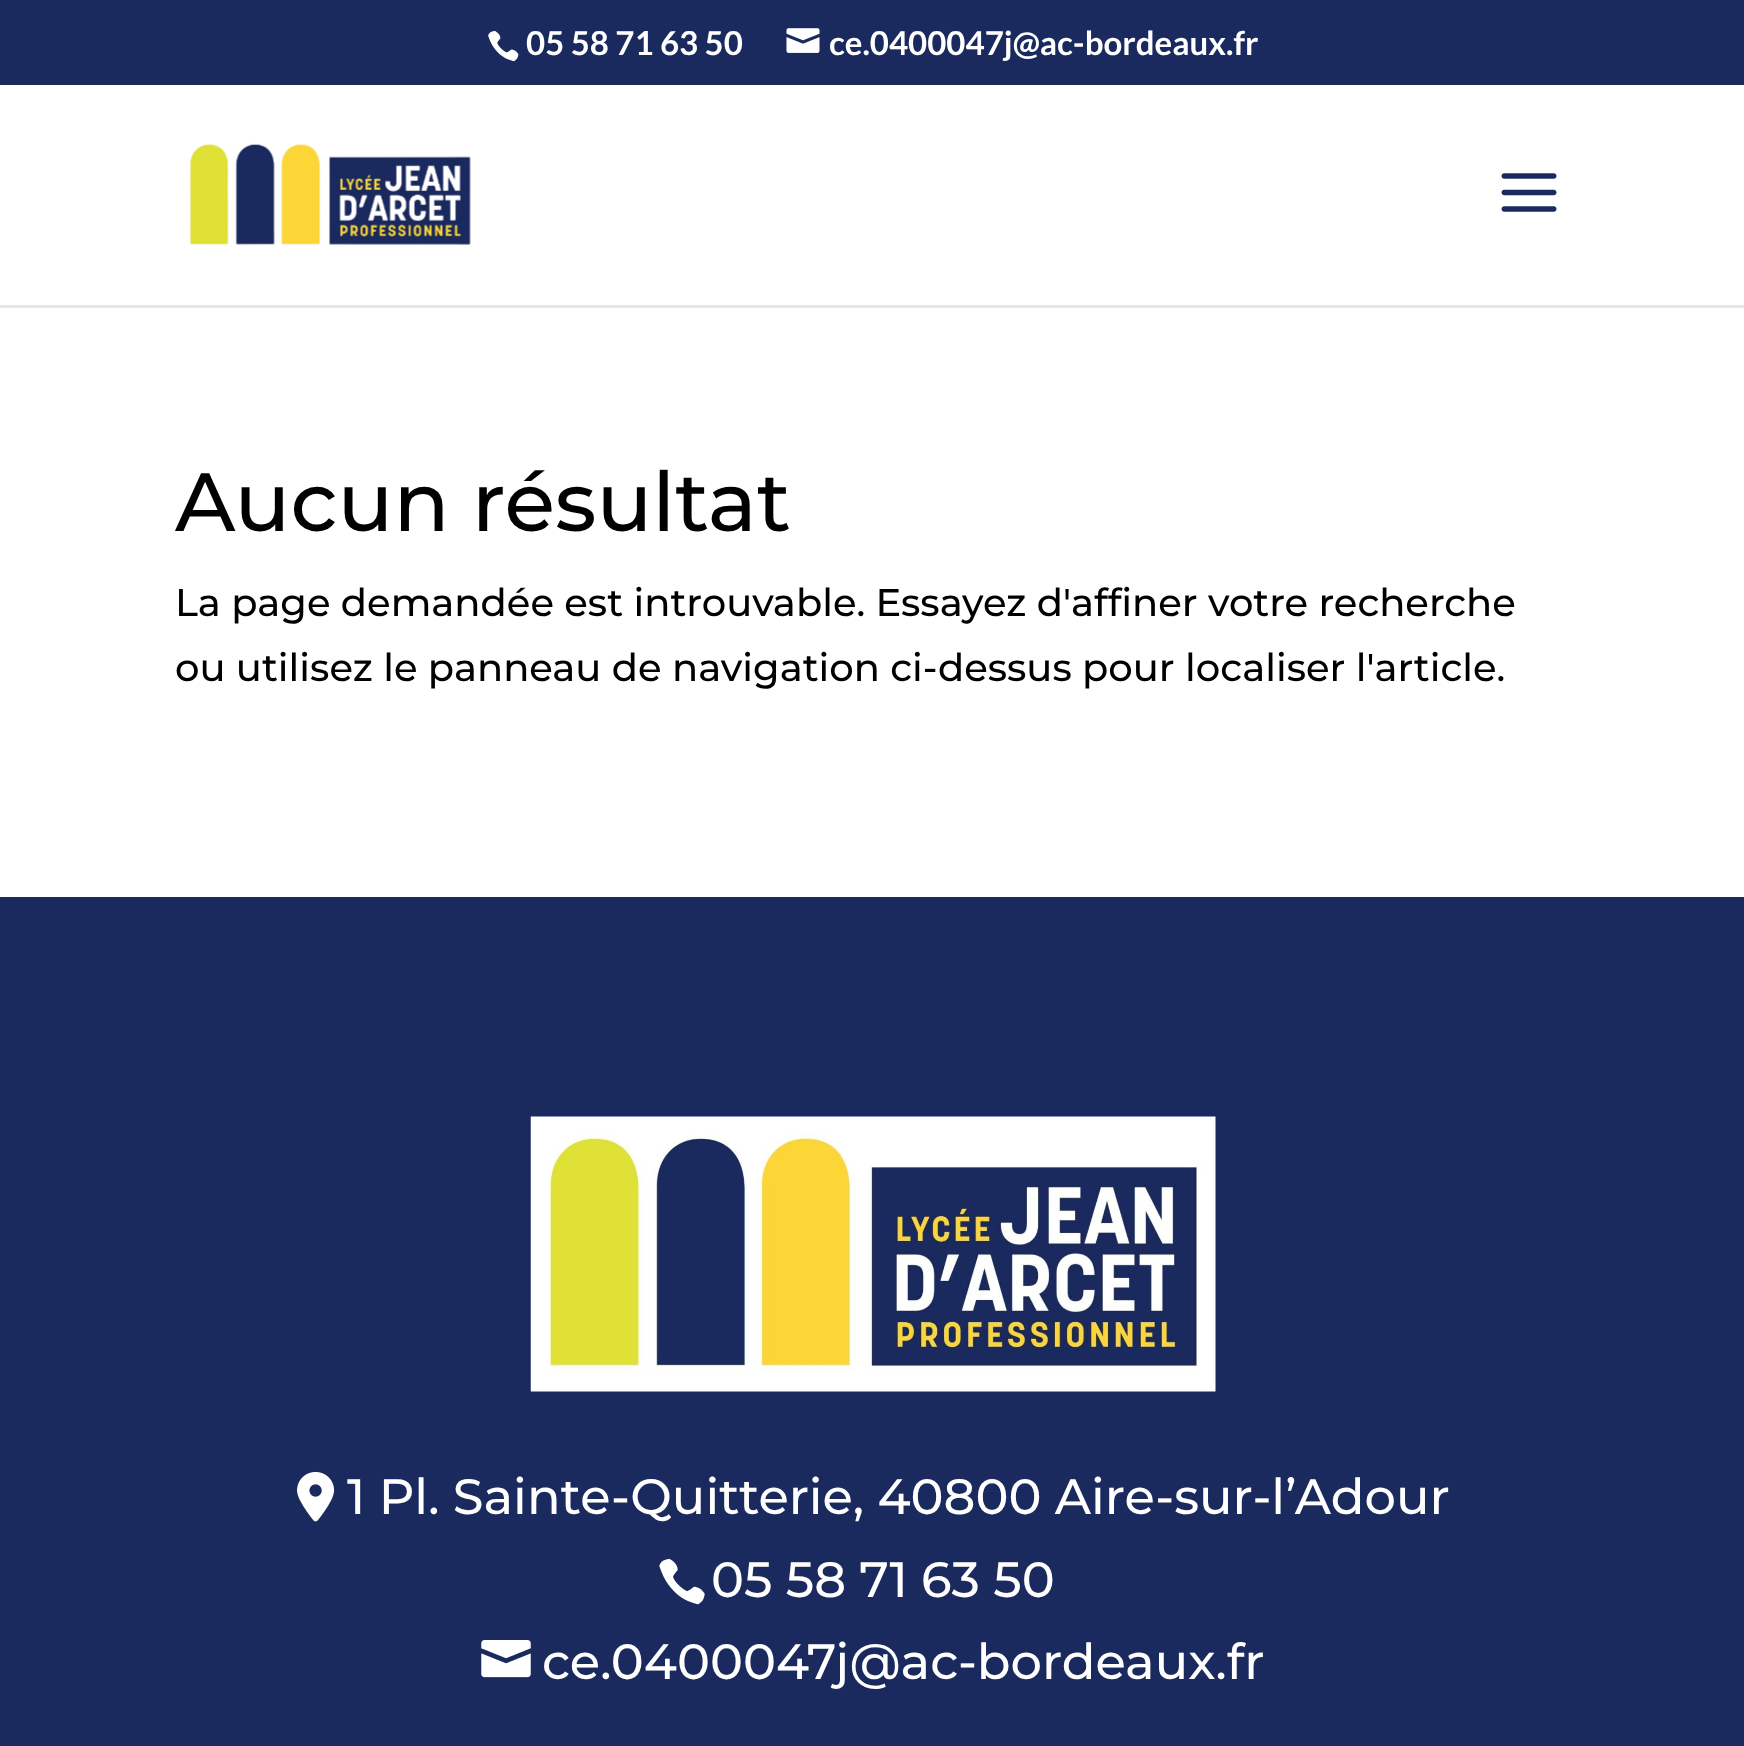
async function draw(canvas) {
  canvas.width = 1744
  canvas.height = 1746
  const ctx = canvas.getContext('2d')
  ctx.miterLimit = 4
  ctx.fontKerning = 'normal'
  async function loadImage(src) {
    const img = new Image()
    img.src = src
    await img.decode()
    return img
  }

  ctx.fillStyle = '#fff'
  ctx.fillRect(0, 0, 1744, 1746)
  ctx.fillStyle = '#1a2a5e'
  ctx.fillRect(0, 0, 1744, 85)
  ctx.drawImage(await loadImage('image0.png'), 488, 30, 31, 32)
  ctx.font = 'bold 33px Lato'
  ctx.fillStyle = '#fff'
  ctx.fillText('05 58 71 63 50', 526, 55)
  ctx.drawImage(await loadImage('image1.png'), 786, 28, 34, 25)
  ctx.fillText('ce.0400047j@ac-bordeaux.fr', 829, 55)
  ctx.fillStyle = '#e6e6e6'
  ctx.fillRect(0, 305, 1744, 3)
  ctx.drawImage(await loadImage('image2.png'), 189, 143, 282, 102)
  ctx.drawImage(await loadImage('image3.png'), 1501, 173, 56, 39)
  ctx.font = '500 82.5px Montserrat'
  ctx.fillStyle = '#000'
  ctx.fillText('Aucun résultat', 175, 531)
  ctx.font = '500 38.5px Montserrat'
  ctx.fillText('La page demandée est introuvable. Essayez d\'affiner votre recherche', 175, 616)
  ctx.fillText('ou utilisez le panneau de navigation ci-dessus pour localiser l\'article.', 175, 681)
  ctx.fillStyle = '#1a2a5e'
  ctx.fillRect(0, 897, 1744, 849)
  ctx.drawImage(await loadImage('image4.png'), 530, 1116, 686, 276)
  ctx.drawImage(await loadImage('image5.png'), 297, 1471, 38, 51)
  ctx.font = '500 49.5px Montserrat'
  ctx.fillStyle = '#fff'
  ctx.fillText('1 Pl. Sainte-Quitterie, 40800 Aire-sur-l’Adour', 347, 1514)
  ctx.drawImage(await loadImage('image6.png'), 659, 1558, 46, 47)
  ctx.fillText('05 58 71 63 50', 711, 1597)
  ctx.drawImage(await loadImage('image7.png'), 481, 1640, 50, 38)
  ctx.fillText('ce.0400047j@ac-bordeaux.fr', 542, 1679)
}

draw(document.querySelector('canvas'))
